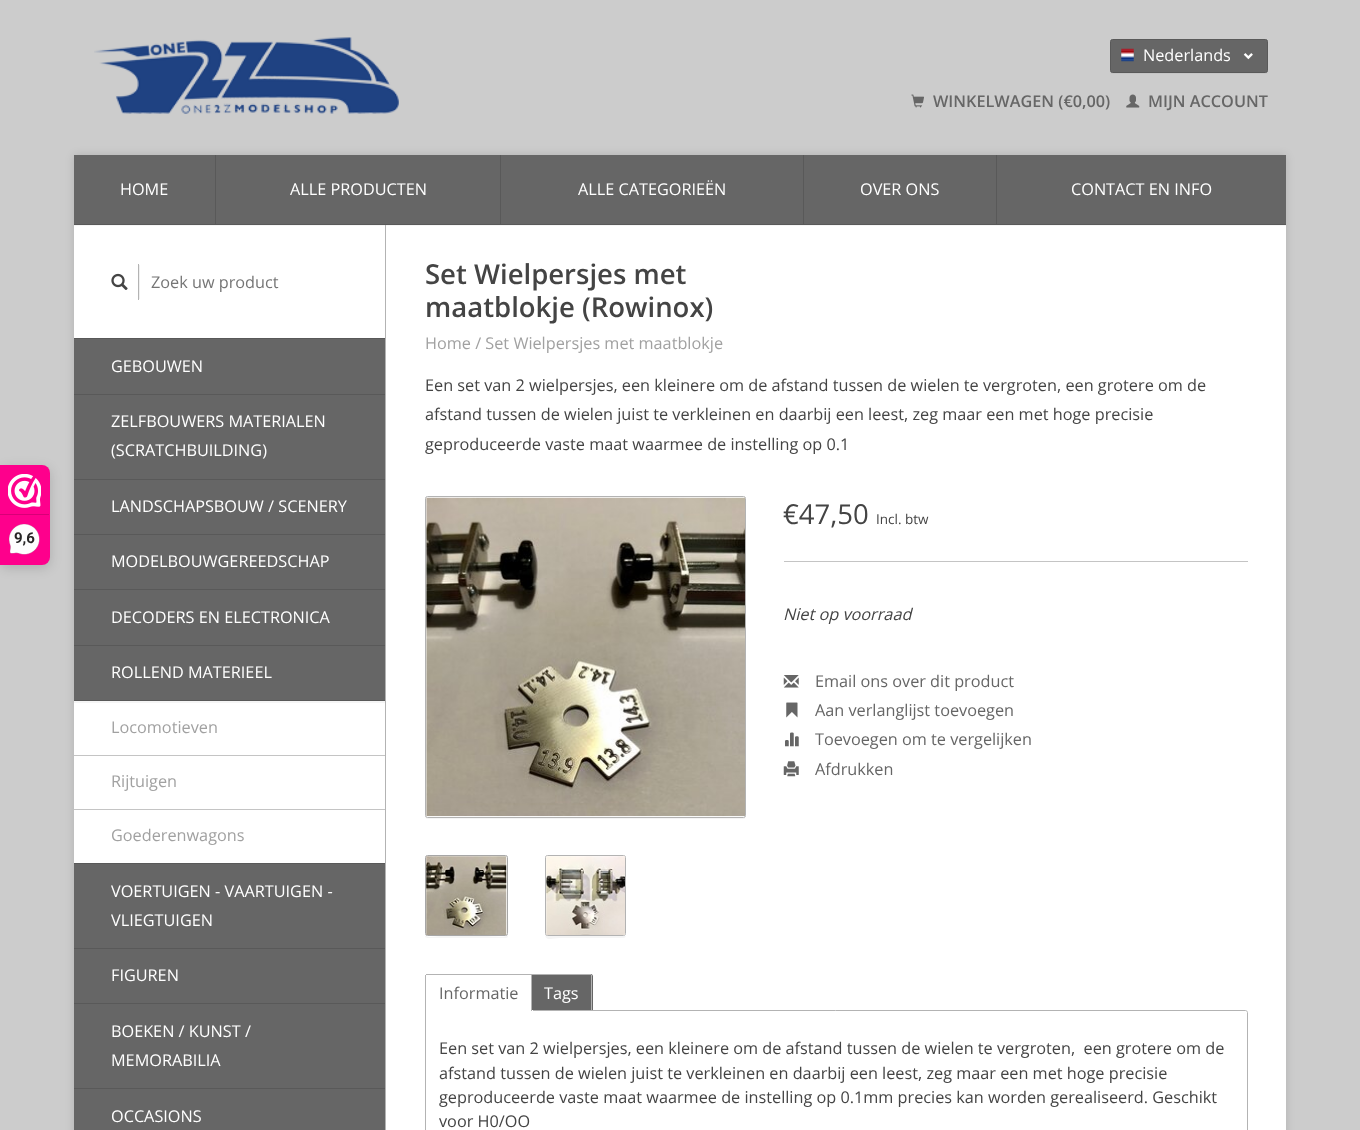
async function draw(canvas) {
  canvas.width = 1360
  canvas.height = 1130
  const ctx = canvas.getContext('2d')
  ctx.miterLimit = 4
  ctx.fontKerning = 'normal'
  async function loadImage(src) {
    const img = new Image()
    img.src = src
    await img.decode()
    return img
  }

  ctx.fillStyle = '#ccc'
  ctx.fillRect(0, 0, 1360, 1130)
  ctx.drawImage(await loadImage('image0.png'), 94, 37, 305, 77)
  ctx.fillStyle = '#c4c4c4'
  ctx.beginPath()
  ctx.moveTo(1110, 70)
  ctx.lineTo(1110, 72)
  ctx.bezierCurveTo(1110, 73, 1111, 74, 1112, 74)
  ctx.lineTo(1266, 74)
  ctx.bezierCurveTo(1267, 74, 1268, 73, 1268, 72)
  ctx.lineTo(1268, 42)
  ctx.lineTo(1267, 41)
  ctx.lineTo(1268, 70)
  ctx.bezierCurveTo(1268, 71, 1266, 72, 1265, 72)
  ctx.lineTo(1112, 72)
  ctx.bezierCurveTo(1111, 72, 1110, 71, 1110, 70)
  ctx.closePath()
  ctx.fill()
  ctx.fillStyle = '#666'
  ctx.beginPath()
  ctx.roundRect(1110.5, 39.5, 157, 33, 2)
  ctx.fill()
  ctx.strokeStyle = '#595959'
  ctx.stroke()
  ctx.drawImage(await loadImage('image1.png'), 1121, 48, 13, 14)
  ctx.font = '16.25px Open Sans'
  ctx.fillStyle = '#fff'
  ctx.fillText('Nederlands', 1143, 61)
  ctx.drawImage(await loadImage('image2.png'), 1243, 53, 10, 7)
  ctx.drawImage(await loadImage('image3.png'), 911, 94, 13, 14)
  ctx.font = '600 16.25px Open Sans'
  ctx.fillStyle = '#666'
  ctx.fillText('WINKELWAGEN (€0,00)', 933, 107)
  ctx.drawImage(await loadImage('image4.png'), 1126, 94, 14, 14)
  ctx.fillText('MIJN ACCOUNT', 1148, 107)
  ctx.fillStyle = '#00000026'
  ctx.filter = 'blur(6px)'
  ctx.beginPath()
  ctx.roundRect(0, 468, 50, 100, 8)
  ctx.fill()
  ctx.filter = 'none'
  ctx.fillStyle = '#fe008c'
  ctx.beginPath()
  ctx.roundRect(0, 465, 50, 100, [0, 8, 8, 0])
  ctx.fill()
  ctx.drawImage(await loadImage('image5.png'), 8, 474, 33, 34)
  ctx.fillStyle = '#d80077'
  ctx.fillRect(0, 514, 49, 1)
  ctx.drawImage(await loadImage('image6.png'), 9, 524, 31, 31)
  ctx.font = 'bold 15px Roboto'
  ctx.fillStyle = '#272626'
  ctx.fillText('9,6', 14, 543)
  ctx.fillStyle = '#00000021'
  ctx.filter = 'blur(4.5px)'
  ctx.beginPath()
  ctx.roundRect(74, 155, 1212, 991, 2.5)
  ctx.fill()
  ctx.filter = 'none'
  ctx.fillStyle = '#fff'
  ctx.fillRect(74, 226, 1212, 904)
  ctx.fillStyle = '#f5f5f5'
  ctx.fillRect(74, 225, 1212, 1)
  ctx.fillStyle = '#595959'
  ctx.fillRect(74, 224, 1212, 1)
  ctx.fillStyle = '#666'
  ctx.fillRect(74, 155, 141, 69)
  ctx.fillStyle = '#595959'
  ctx.fillRect(215, 155, 1, 69)
  ctx.font = '16.25px Open Sans'
  ctx.fillStyle = '#fff'
  ctx.fillText('HOME', 120, 195)
  ctx.fillStyle = '#666'
  ctx.fillRect(216, 155, 284, 69)
  ctx.fillStyle = '#595959'
  ctx.fillRect(500, 155, 1, 69)
  ctx.fillStyle = '#fff'
  ctx.fillText('ALLE PRODUCTEN', 290, 195)
  ctx.fillStyle = '#666'
  ctx.fillRect(501, 155, 302, 69)
  ctx.fillStyle = '#595959'
  ctx.fillRect(803, 155, 1, 69)
  ctx.fillStyle = '#fff'
  ctx.fillText('ALLE CATEGORIEËN', 578, 195)
  ctx.fillStyle = '#666'
  ctx.fillRect(804, 155, 482, 69)
  ctx.fillStyle = '#595959'
  ctx.fillRect(996, 155, 1, 69)
  ctx.fillStyle = '#fff'
  ctx.fillText('OVER ONS', 860, 195)
  ctx.fillText('CONTACT EN INFO', 1071, 195)
  ctx.fillStyle = '#b3b3b3'
  ctx.fillRect(385, 225, 1, 905)
  ctx.save()
  ctx.beginPath()
  ctx.rect(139, 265, 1, 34)
  ctx.clip()
  ctx.fillStyle = '#0000000f'
  ctx.filter = 'blur(0.5px)'
  ctx.beginPath()
  ctx.rect(105, 265, 35, 34)
  ctx.fill()
  ctx.filter = 'none'
  ctx.restore()
  ctx.fillRect(138, 264, 1, 36)
  ctx.drawImage(await loadImage('image7.png'), 111, 273, 17, 17)
  ctx.fillStyle = '#757575'
  ctx.fillText('Zoek uw product', 151, 288)
  ctx.fillStyle = '#666'
  ctx.fillRect(74, 339, 311, 55)
  ctx.fillStyle = '#595959'
  ctx.fillRect(74, 338, 311, 1)
  ctx.fillStyle = '#fff'
  ctx.fillText('GEBOUWEN', 111, 372)
  ctx.fillStyle = '#666'
  ctx.fillRect(74, 395, 311, 84)
  ctx.fillStyle = '#595959'
  ctx.fillRect(74, 394, 311, 1)
  ctx.fillStyle = '#fff'
  ctx.fillText('ZELFBOUWERS MATERIALEN', 111, 427)
  ctx.fillText('(SCRATCHBUILDING)', 111, 456)
  ctx.fillStyle = '#666'
  ctx.fillRect(74, 480, 311, 54)
  ctx.fillStyle = '#595959'
  ctx.fillRect(74, 479, 311, 1)
  ctx.fillStyle = '#fff'
  ctx.fillText('LANDSCHAPSBOUW / SCENERY', 111, 512)
  ctx.fillStyle = '#666'
  ctx.fillRect(74, 535, 311, 54)
  ctx.fillStyle = '#595959'
  ctx.fillRect(74, 534, 311, 1)
  ctx.fillStyle = '#fff'
  ctx.fillText('MODELBOUWGEREEDSCHAP', 111, 567)
  ctx.fillStyle = '#666'
  ctx.fillRect(74, 590, 311, 55)
  ctx.fillStyle = '#595959'
  ctx.fillRect(74, 589, 311, 1)
  ctx.fillStyle = '#fff'
  ctx.fillText('DECODERS EN ELECTRONICA', 111, 623)
  ctx.fillStyle = '#f5f5f5'
  ctx.fillRect(74, 701, 311, 2)
  ctx.fillStyle = '#666'
  ctx.fillRect(74, 646, 311, 54)
  ctx.fillStyle = '#595959'
  ctx.fillRect(74, 645, 311, 1)
  ctx.fillRect(74, 700, 311, 1)
  ctx.fillStyle = '#fff'
  ctx.fillText('ROLLEND MATERIEEL', 111, 678)
  ctx.fillStyle = '#c4c4c4'
  ctx.fillRect(74, 755, 311, 1)
  ctx.fillStyle = '#a1a1a1'
  ctx.fillText('Locomotieven', 111, 733)
  ctx.fillStyle = '#c4c4c4'
  ctx.fillRect(74, 809, 311, 1)
  ctx.fillStyle = '#a1a1a1'
  ctx.fillText('Rijtuigen', 111, 787)
  ctx.fillText('Goederenwagons', 111, 841)
  ctx.fillStyle = '#666'
  ctx.fillRect(74, 864, 311, 84)
  ctx.fillStyle = '#595959'
  ctx.fillRect(74, 863, 311, 1)
  ctx.fillStyle = '#fff'
  ctx.fillText('VOERTUIGEN - VAARTUIGEN -', 111, 897)
  ctx.fillText('VLIEGTUIGEN', 111, 926)
  ctx.fillStyle = '#666'
  ctx.fillRect(74, 949, 311, 54)
  ctx.fillStyle = '#595959'
  ctx.fillRect(74, 948, 311, 1)
  ctx.fillStyle = '#fff'
  ctx.fillText('FIGUREN', 111, 981)
  ctx.fillStyle = '#666'
  ctx.fillRect(74, 1004, 311, 84)
  ctx.fillStyle = '#595959'
  ctx.fillRect(74, 1003, 311, 1)
  ctx.fillStyle = '#fff'
  ctx.fillText('BOEKEN / KUNST /', 111, 1037)
  ctx.fillText('MEMORABILIA', 111, 1066)
  ctx.fillStyle = '#666'
  ctx.fillRect(74, 1089, 311, 41)
  ctx.fillStyle = '#595959'
  ctx.fillRect(74, 1088, 311, 1)
  ctx.fillStyle = '#fff'
  ctx.fillText('OCCASIONS', 111, 1122)
  ctx.font = '600 27.5px Open Sans'
  ctx.fillStyle = '#444'
  ctx.fillText('Set Wielpersjes met', 425, 284)
  ctx.fillText('maatblokje (Rowinox)', 425, 317)
  ctx.font = '16.25px Open Sans'
  ctx.fillStyle = '#a1a1a1'
  ctx.fillText('Home / Set Wielpersjes met maatblokje', 425, 349)
  ctx.fillStyle = '#444'
  ctx.fillText('Een set van 2 wielpersjes, een kleinere om de afstand tussen de wielen te vergroten, een grotere om de', 425, 391)
  ctx.fillText('afstand tussen de wielen juist te verkleinen en daarbij een leest, zeg maar een met hoge precisie', 425, 420)
  ctx.fillText('geproduceerde vaste maat waarmee de instelling op 0.1', 425, 450)
  ctx.fillStyle = '#f5f5f5'
  ctx.beginPath()
  ctx.moveTo(425, 815)
  ctx.lineTo(425, 816)
  ctx.bezierCurveTo(425, 818, 426, 819, 428, 819)
  ctx.lineTo(744, 819)
  ctx.bezierCurveTo(745, 819, 746, 818, 746, 816)
  ctx.bezierCurveTo(746, 817, 745, 818, 744, 818)
  ctx.lineTo(428, 818)
  ctx.bezierCurveTo(426, 818, 425, 816, 425, 815)
  ctx.closePath()
  ctx.fill()
  ctx.beginPath()
  ctx.roundRect(425.5, 496.5, 320, 321, 2)
  ctx.strokeStyle = '#b3b3b3'
  ctx.stroke()
  ctx.drawImage(await loadImage('image8.png'), 426, 497, 319, 320)
  ctx.beginPath()
  ctx.moveTo(425, 934)
  ctx.lineTo(425, 936)
  ctx.bezierCurveTo(425, 937, 426, 938, 428, 938)
  ctx.lineTo(506, 938)
  ctx.bezierCurveTo(507, 938, 508, 937, 508, 936)
  ctx.lineTo(508, 858)
  ctx.lineTo(507, 857)
  ctx.lineTo(508, 908)
  ctx.bezierCurveTo(508, 944, 515, 936, 479, 936)
  ctx.lineTo(440, 936)
  ctx.bezierCurveTo(435, 936, 425, 939, 425, 934)
  ctx.closePath()
  ctx.fill()
  ctx.beginPath()
  ctx.roundRect(425.5, 855.5, 82, 80, 2)
  ctx.strokeStyle = '#a7a7a7'
  ctx.stroke()
  ctx.drawImage(await loadImage('image9.png'), 426, 856, 81, 79)
  ctx.beginPath()
  ctx.moveTo(545, 934)
  ctx.bezierCurveTo(545, 942, 553, 938, 560, 938)
  ctx.lineTo(624, 938)
  ctx.bezierCurveTo(626, 937, 626, 936, 626, 935)
  ctx.bezierCurveTo(626, 936, 625, 936, 624, 936)
  ctx.lineTo(548, 936)
  ctx.bezierCurveTo(546, 936, 545, 935, 545, 934)
  ctx.closePath()
  ctx.fill()
  ctx.beginPath()
  ctx.roundRect(545.5, 855.5, 80, 80, 2)
  ctx.strokeStyle = '#b3b3b3'
  ctx.stroke()
  ctx.drawImage(await loadImage('image10.png'), 546, 856, 79, 79)
  ctx.fillStyle = '#c4c4c4'
  ctx.fillRect(784, 561, 464, 1)
  ctx.font = '27.5px Open Sans'
  ctx.fillStyle = '#444'
  ctx.fillText('€47,50', 783, 524)
  ctx.font = '13.5px Open Sans'
  ctx.fillText('Incl. btw', 876, 524)
  ctx.font = 'italic 16.25px Open Sans'
  ctx.fillText('Niet op voorraad', 783, 620)
  ctx.drawImage(await loadImage('image11.png'), 783, 675, 16, 13)
  ctx.font = '16.25px Open Sans'
  ctx.fillStyle = '#666'
  ctx.fillText('Email ons over dit product', 815, 687)
  ctx.drawImage(await loadImage('image12.png'), 786, 702, 12, 16)
  ctx.fillText('Aan verlanglijst toevoegen', 815, 716)
  ctx.drawImage(await loadImage('image13.png'), 785, 732, 14, 15)
  ctx.fillText('Toevoegen om te vergelijken', 815, 745)
  ctx.drawImage(await loadImage('image14.png'), 783, 761, 16, 16)
  ctx.fillText('Afdrukken', 815, 775)
  ctx.beginPath()
  ctx.moveTo(425.5, 1010.5)
  ctx.lineTo(1245.5, 1010.5)
  ctx.bezierCurveTo(1246.5, 1010.5, 1247.5, 1011.5, 1247.5, 1012.5)
  ctx.lineTo(1247.5, 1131.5)
  ctx.bezierCurveTo(1247.5, 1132.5, 1246.5, 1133.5, 1245.5, 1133.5)
  ctx.lineTo(427.5, 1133.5)
  ctx.bezierCurveTo(426.5, 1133.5, 425.5, 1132.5, 425.5, 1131.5)
  ctx.closePath()
  ctx.stroke()
  ctx.fillStyle = '#fff'
  ctx.beginPath()
  ctx.roundRect(425, 974, 108, 37, [2.5, 0, 0, 0])
  ctx.fill()
  ctx.fillStyle = '#b3b3b3'
  ctx.fillRect(426, 974, 107, 1)
  ctx.fillRect(531, 1010, 1, 1)
  ctx.fillRect(425, 975, 1, 36)
  ctx.fillStyle = '#666'
  ctx.fillText('Informatie', 439, 999)
  ctx.beginPath()
  ctx.roundRect(531, 974, 62, 36, [0, 2.5, 0, 0])
  ctx.fill()
  ctx.fillStyle = '#b3b3b3'
  ctx.fillRect(531, 974, 60, 1)
  ctx.fillRect(591, 975, 1, 35)
  ctx.fillRect(531, 974, 1, 36)
  ctx.fillStyle = '#fff'
  ctx.fillText('Tags', 544, 999)
  ctx.fillStyle = '#444'
  ctx.fillText('Een set van 2 wielpersjes, een kleinere om de afstand tussen de wielen te vergroten,  een grotere om de', 439, 1054)
  ctx.fillText('afstand tussen de wielen juist te verkleinen en daarbij een leest, zeg maar een met hoge precisie', 439, 1079)
  ctx.fillText('geproduceerde vaste maat waarmee de instelling op 0.1mm precies kan worden gerealiseerd. Geschikt', 439, 1103)
  ctx.fillText('voor H0/OO', 439, 1127)
}

draw(document.querySelector('canvas'))
